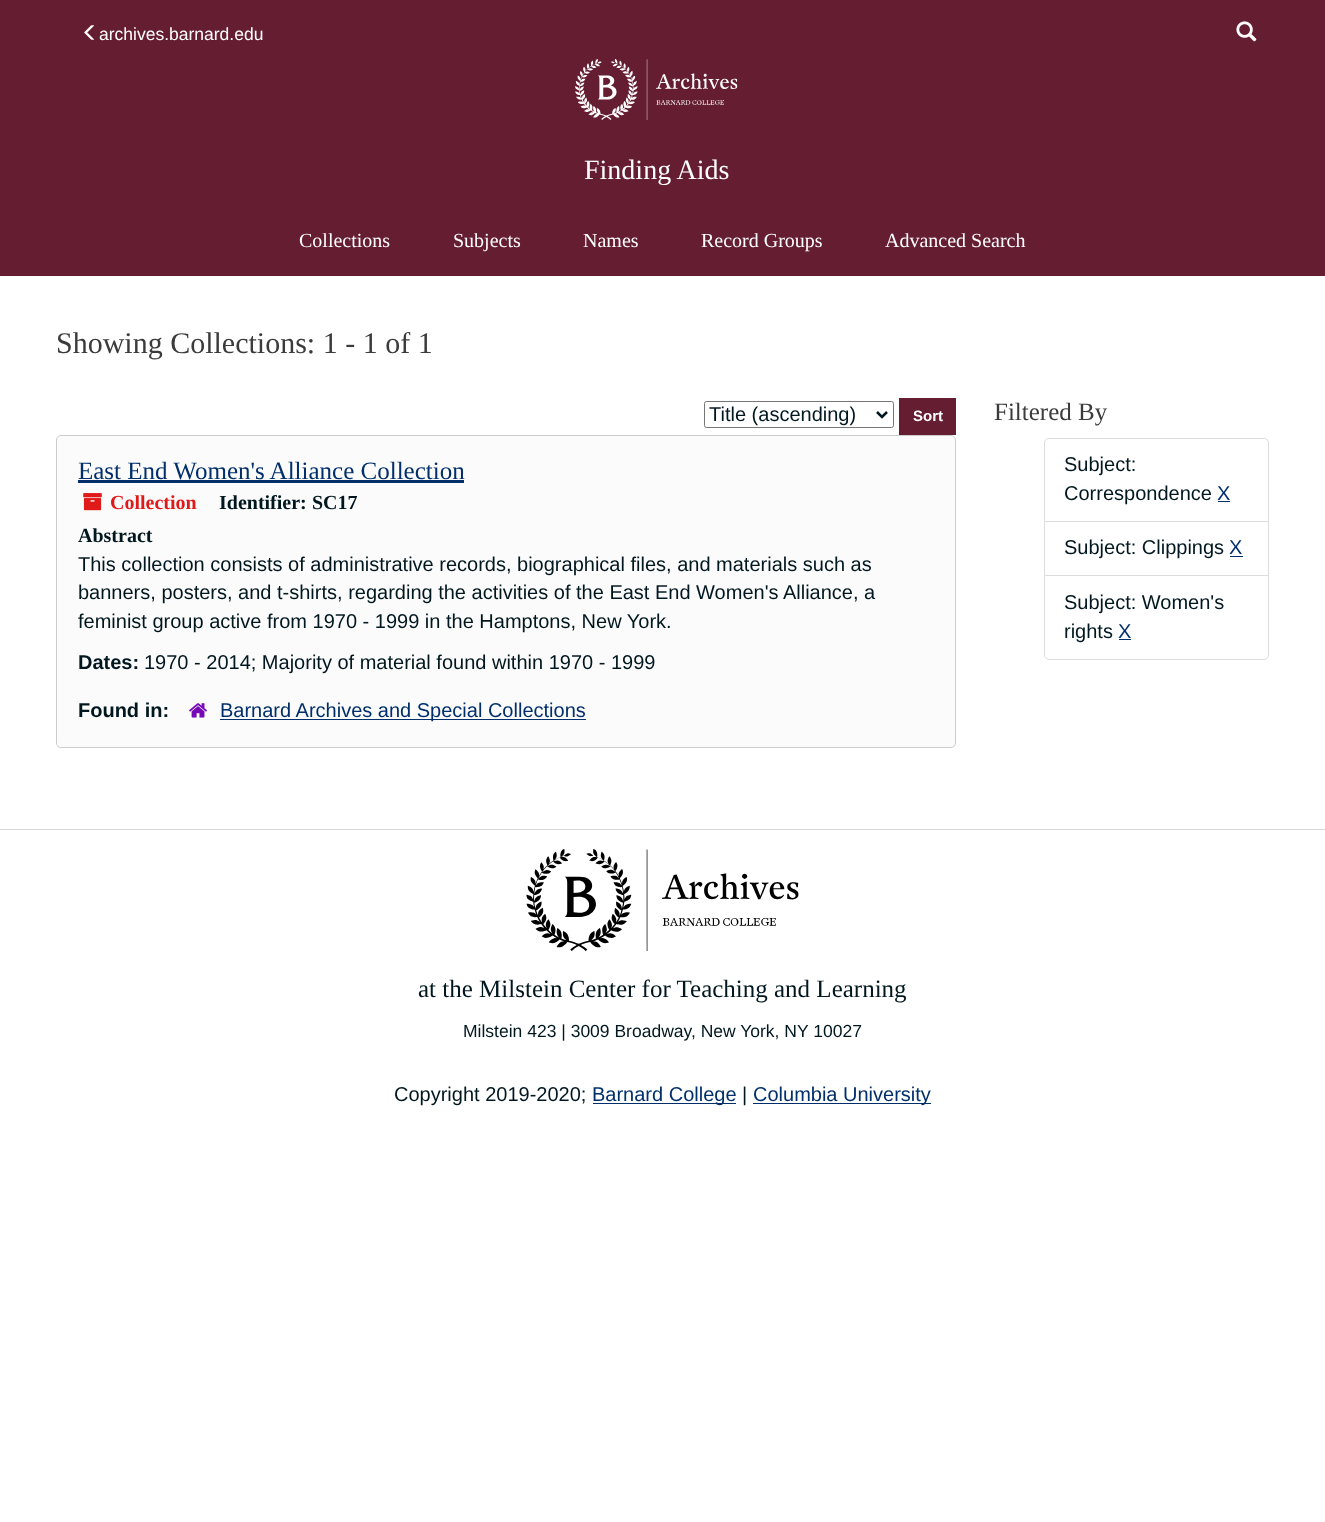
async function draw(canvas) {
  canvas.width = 1325
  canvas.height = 1522
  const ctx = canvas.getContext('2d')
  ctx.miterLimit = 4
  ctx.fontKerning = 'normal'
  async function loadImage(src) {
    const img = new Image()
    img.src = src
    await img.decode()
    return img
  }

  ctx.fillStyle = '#fff'
  ctx.fillRect(0, 0, 1325, 1522)
  ctx.fillStyle = '#651d32'
  ctx.fillRect(0, 0, 1325, 276)
  ctx.drawImage(await loadImage('image0.png'), 84, 25, 11, 15)
  ctx.font = '17.5px Liberation Sans'
  ctx.fillStyle = '#fff'
  ctx.fillText('archives.barnard.edu', 99, 40)
  ctx.drawImage(await loadImage('image1.png'), 1236, 21, 21, 21)
  ctx.drawImage(await loadImage('image2.png'), 575, 59, 163, 61)
  ctx.font = '28px Liberation Serif'
  ctx.fillText('Finding Aids', 584, 179)
  ctx.font = '20px Liberation Serif'
  ctx.fillText('Collections', 299, 247)
  ctx.fillText('Subjects', 453, 247)
  ctx.fillText('Names', 583, 247)
  ctx.fillText('Record Groups', 701, 247)
  ctx.fillText('Advanced Search', 885, 247)
  ctx.font = '30px Liberation Serif'
  ctx.fillStyle = '#3a3b3a'
  ctx.fillText('Showing Collections: 1 - 1 of 1', 56, 353)
  ctx.beginPath()
  ctx.roundRect(704.5, 401.5, 189, 26, 2)
  ctx.strokeStyle = '#767676'
  ctx.stroke()
  ctx.beginPath()
  ctx.moveTo(877, 412)
  ctx.lineTo(882, 417)
  ctx.lineTo(887, 412)
  ctx.strokeStyle = '#00171f'
  ctx.lineWidth = 2.5
  ctx.stroke()
  ctx.font = '20px Liberation Sans'
  ctx.fillStyle = '#00171f'
  ctx.fillText('Title (ascending)', 709, 421)
  ctx.fillStyle = '#651d32'
  ctx.fillRect(899, 398, 57, 37)
  ctx.font = 'bold 15px Liberation Sans'
  ctx.fillStyle = '#fff'
  ctx.fillText('Sort', 913, 421)
  ctx.fillStyle = '#fbfbfb'
  ctx.beginPath()
  ctx.roundRect(56.5, 435.5, 899, 312, 4.5)
  ctx.fill()
  ctx.strokeStyle = '#ccc'
  ctx.lineWidth = 1
  ctx.stroke()
  ctx.font = '25px Liberation Serif'
  ctx.fillStyle = '#002f6c'
  ctx.fillText('East End Women\'s Alliance Collection', 78, 479)
  ctx.fillRect(78, 480, 386, 3)
  ctx.drawImage(await loadImage('image3.png'), 83, 493, 19, 18)
  ctx.font = 'bold 20px Liberation Serif'
  ctx.fillStyle = '#e01919'
  ctx.fillText('Collection', 110, 509)
  ctx.fillStyle = '#00171f'
  ctx.fillText('Identifier:', 219, 509)
  ctx.fillText('SC17', 312, 509)
  ctx.fillText('Abstract', 78, 542)
  ctx.font = '20px Liberation Sans'
  ctx.fillText('This collection consists of administrative records, biographical files, and materials such as', 78, 571)
  ctx.fillText('banners, posters, and t-shirts, regarding the activities of the East End Women\'s Alliance, a', 78, 599)
  ctx.fillText('feminist group active from 1970 - 1999 in the Hamptons, New York.', 78, 628)
  ctx.font = 'bold 20px Liberation Sans'
  ctx.fillText('Dates:', 78, 669)
  ctx.font = '20px Liberation Sans'
  ctx.fillText('1970 - 2014; Majority of material found within 1970 - 1999', 144, 669)
  ctx.font = 'bold 20px Liberation Sans'
  ctx.fillText('Found in:', 78, 717)
  ctx.drawImage(await loadImage('image4.png'), 189, 703, 18, 15)
  ctx.fillStyle = '#002f6c'
  ctx.fillRect(220, 719, 366, 1)
  ctx.font = '20px Liberation Sans'
  ctx.fillText('Barnard Archives and Special Collections', 220, 717)
  ctx.font = '25px Liberation Serif'
  ctx.fillStyle = '#3a3b3a'
  ctx.fillText('Filtered By', 994, 420)
  ctx.beginPath()
  ctx.roundRect(1044.5, 438.5, 224, 84, [4.5, 4.5, 0, 0])
  ctx.strokeStyle = '#ddd'
  ctx.stroke()
  ctx.font = '20px Liberation Sans'
  ctx.fillStyle = '#00171f'
  ctx.fillText('Subject:', 1064, 471)
  ctx.fillText('Correspondence', 1064, 500)
  ctx.fillStyle = '#002f6c'
  ctx.fillText('X', 1217, 500)
  ctx.fillRect(1218, 501, 12, 1)
  ctx.fillStyle = '#fff'
  ctx.fillRect(1045, 522, 223, 1)
  ctx.strokeRect(1044.5, 521.5, 224, 54)
  ctx.fillStyle = '#00171f'
  ctx.fillText('Subject: Clippings', 1064, 554)
  ctx.fillStyle = '#002f6c'
  ctx.fillText('X', 1229, 554)
  ctx.fillRect(1230, 556, 13, 1)
  ctx.fillStyle = '#fff'
  ctx.beginPath()
  ctx.roundRect(1044.5, 575.5, 224, 84, [0, 0, 4.5, 4.5])
  ctx.fill()
  ctx.stroke()
  ctx.fillStyle = '#00171f'
  ctx.fillText('Subject: Women\'s', 1064, 609)
  ctx.fillText('rights', 1064, 638)
  ctx.fillStyle = '#002f6c'
  ctx.fillText('X', 1118, 638)
  ctx.fillRect(1119, 639, 12, 1)
  ctx.fillStyle = '#d8d8d8'
  ctx.fillRect(0, 829, 1325, 1)
  ctx.drawImage(await loadImage('image5.png'), 526, 849, 273, 102)
  ctx.font = '25px Liberation Serif'
  ctx.fillStyle = '#00171f'
  ctx.fillText('at the Milstein Center for Teaching and Learning', 418, 997)
  ctx.font = '17.5px Liberation Sans'
  ctx.fillText('Milstein 423 | 3009 Broadway, New York, NY 10027', 463, 1037)
  ctx.font = '20px Liberation Sans'
  ctx.fillText('Copyright 2019-2020;', 394, 1101)
  ctx.fillStyle = '#002f6c'
  ctx.fillRect(593, 1103, 143, 1)
  ctx.fillText('Barnard College', 592, 1101)
  ctx.fillStyle = '#00171f'
  ctx.fillText('|', 742, 1101)
  ctx.fillStyle = '#002f6c'
  ctx.fillRect(753, 1103, 178, 1)
  ctx.fillText('Columbia University', 753, 1101)
}

draw(document.querySelector('canvas'))
